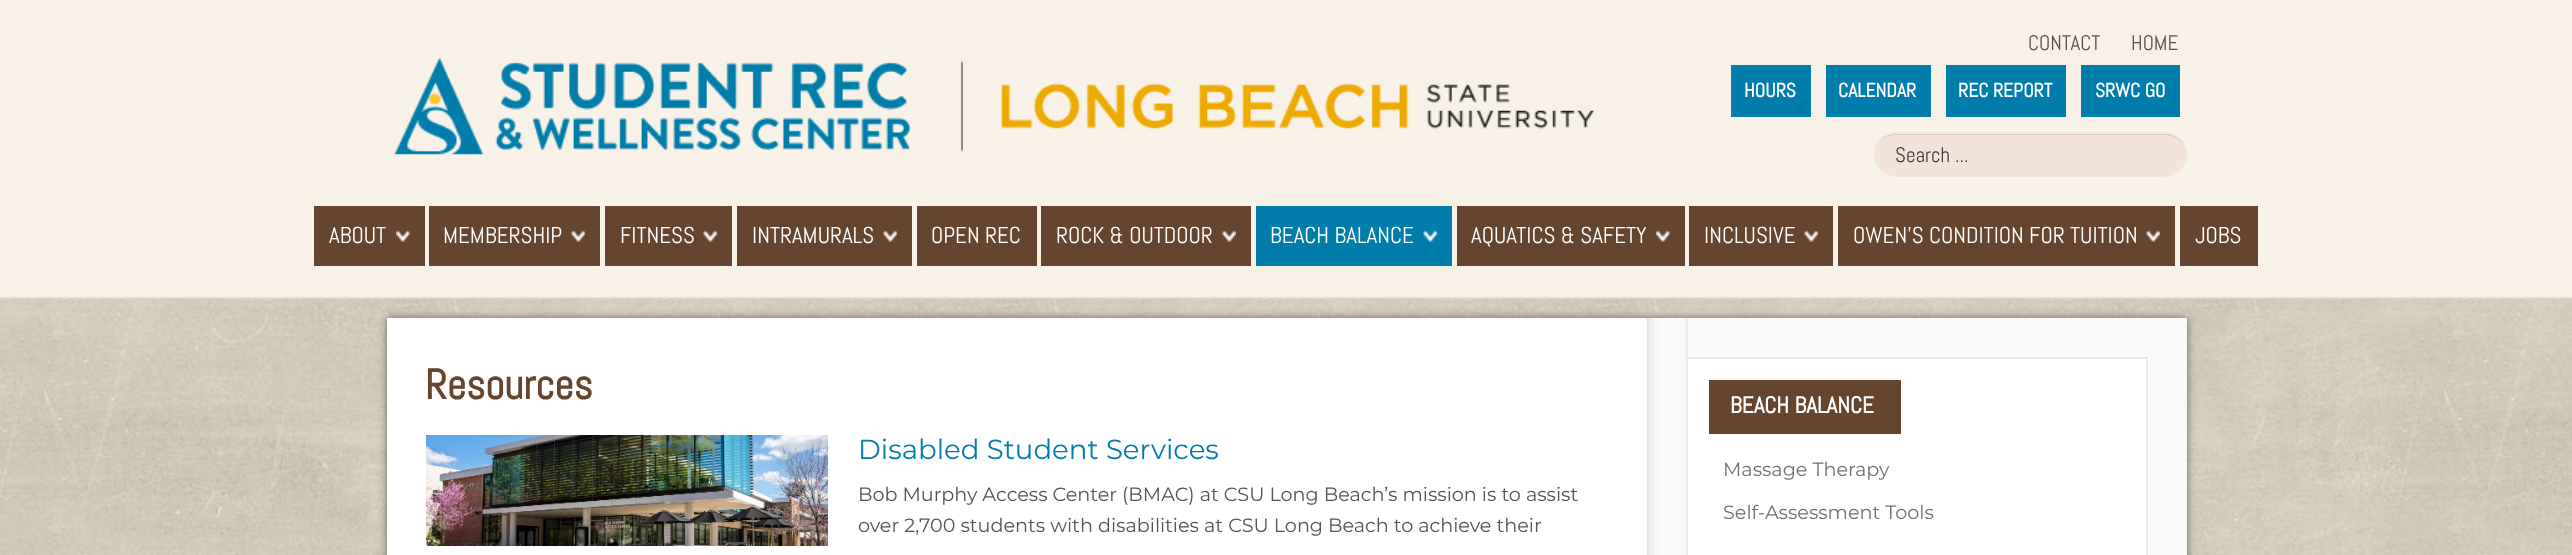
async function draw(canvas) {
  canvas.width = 2572
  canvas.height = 555
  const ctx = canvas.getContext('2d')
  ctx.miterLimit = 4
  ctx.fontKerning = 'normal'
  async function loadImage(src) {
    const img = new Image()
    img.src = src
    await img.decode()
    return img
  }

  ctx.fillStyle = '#f7f1e8'
  ctx.fillRect(0, 0, 2572, 555)
  ctx.fillStyle = '#e0e0e0'
  ctx.fillRect(0, 297, 2572, 2)
  ctx.drawImage(await loadImage('image0.png'), 394, 57, 1200, 98)
  ctx.font = '21px Abel'
  ctx.fillStyle = '#5d524b'
  ctx.fillText('CONTACT', 2028, 50)
  ctx.fillText('HOME', 2131, 50)
  ctx.fillStyle = '#007daa'
  ctx.fillRect(1731, 65, 80, 52)
  ctx.font = 'bold 19.5px Abel'
  ctx.fillStyle = '#fff'
  ctx.fillText('HOURS', 1744, 97)
  ctx.fillStyle = '#007daa'
  ctx.fillRect(1826, 65, 105, 52)
  ctx.fillStyle = '#fff'
  ctx.fillText('CALENDAR', 1838, 97)
  ctx.fillStyle = '#007daa'
  ctx.fillRect(1946, 65, 120, 52)
  ctx.fillStyle = '#fff'
  ctx.fillText('REC REPORT', 1958, 97)
  ctx.fillStyle = '#007daa'
  ctx.fillRect(2081, 65, 99, 52)
  ctx.fillStyle = '#fff'
  ctx.fillText('SRWC GO', 2095, 97)
  ctx.fillStyle = '#f2e4da'
  ctx.beginPath()
  ctx.roundRect(1874, 132, 313, 45, 22.5)
  ctx.fill()
  ctx.fillStyle = '#dacdc4'
  ctx.beginPath()
  ctx.moveTo(1896, 135)
  ctx.lineTo(2164, 135)
  ctx.bezierCurveTo(2176, 135, 2186, 144, 2186, 155)
  ctx.bezierCurveTo(2186, 144, 2177, 134, 2165, 134)
  ctx.lineTo(1896, 134)
  ctx.bezierCurveTo(1884, 134, 1875, 144, 1875, 155)
  ctx.bezierCurveTo(1875, 144, 1884, 135, 1896, 135)
  ctx.closePath()
  ctx.fill()
  ctx.font = '21px Abel'
  ctx.fillStyle = '#3c3c3c'
  ctx.fillText('Search ...', 1895, 162)
  ctx.fillStyle = '#66452f'
  ctx.fillRect(314, 206, 111, 60)
  ctx.font = '23px Abel'
  ctx.fillStyle = '#fff'
  ctx.fillText('ABOUT', 329, 243)
  ctx.drawImage(await loadImage('image1.png'), 396, 230, 14, 12)
  ctx.fillStyle = '#66452f'
  ctx.fillRect(429, 206, 171, 60)
  ctx.fillStyle = '#fff'
  ctx.fillText('MEMBERSHIP', 443, 243)
  ctx.drawImage(await loadImage('image2.png'), 571, 230, 14, 12)
  ctx.fillStyle = '#66452f'
  ctx.fillRect(605, 206, 127, 60)
  ctx.fillStyle = '#fff'
  ctx.fillText('FITNESS', 620, 243)
  ctx.drawImage(await loadImage('image2.png'), 703, 230, 14, 12)
  ctx.fillStyle = '#66452f'
  ctx.fillRect(737, 206, 175, 60)
  ctx.fillStyle = '#fff'
  ctx.fillText('INTRAMURALS', 752, 243)
  ctx.drawImage(await loadImage('image3.png'), 883, 230, 14, 12)
  ctx.fillStyle = '#66452f'
  ctx.fillRect(917, 206, 120, 60)
  ctx.fillStyle = '#fff'
  ctx.fillText('OPEN REC', 931, 243)
  ctx.fillStyle = '#66452f'
  ctx.fillRect(1041, 206, 210, 60)
  ctx.fillStyle = '#fff'
  ctx.fillText('ROCK & OUTDOOR', 1056, 243)
  ctx.drawImage(await loadImage('image3.png'), 1222, 230, 14, 12)
  ctx.fillStyle = '#007daa'
  ctx.fillRect(1256, 206, 196, 60)
  ctx.fillStyle = '#fff'
  ctx.fillText('BEACH BALANCE', 1270, 243)
  ctx.drawImage(await loadImage('image4.png'), 1423, 230, 14, 12)
  ctx.fillStyle = '#66452f'
  ctx.fillRect(1457, 206, 228, 60)
  ctx.fillStyle = '#fff'
  ctx.fillText('AQUATICS & SAFETY', 1471, 243)
  ctx.drawImage(await loadImage('image5.png'), 1656, 230, 14, 12)
  ctx.fillStyle = '#66452f'
  ctx.fillRect(1689, 206, 144, 60)
  ctx.fillStyle = '#fff'
  ctx.fillText('INCLUSIVE', 1704, 243)
  ctx.drawImage(await loadImage('image2.png'), 1804, 230, 14, 12)
  ctx.fillStyle = '#66452f'
  ctx.fillRect(1838, 206, 337, 60)
  ctx.fillStyle = '#fff'
  ctx.fillText('OWEN\'S CONDITION FOR TUITION', 1853, 243)
  ctx.drawImage(await loadImage('image2.png'), 2146, 230, 14, 12)
  ctx.fillStyle = '#66452f'
  ctx.fillRect(2180, 206, 78, 60)
  ctx.fillStyle = '#fff'
  ctx.fillText('JOBS', 2195, 243)
  ctx.drawImage(await loadImage('image6.png'), 0, 298, 2572, 257)
  ctx.fillRect(387, 318, 1260, 237)
  ctx.save()
  ctx.beginPath()
  ctx.moveTo(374, 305)
  ctx.lineTo(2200, 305)
  ctx.lineTo(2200, 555)
  ctx.lineTo(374, 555)
  ctx.closePath()
  ctx.moveTo(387, 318)
  ctx.lineTo(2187, 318)
  ctx.lineTo(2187, 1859)
  ctx.lineTo(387, 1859)
  ctx.closePath()
  ctx.clip('evenodd')
  ctx.fillStyle = '#666'
  ctx.filter = 'blur(4px)'
  ctx.beginPath()
  ctx.rect(387, 318, 1800, 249)
  ctx.fill()
  ctx.filter = 'none'
  ctx.restore()
  ctx.font = 'bold 42px Abel'
  ctx.fillStyle = '#66452f'
  ctx.fillText('Resources', 425, 399)
  ctx.drawImage(await loadImage('image7.png'), 426, 435, 402, 111)
  ctx.font = '100 27.6px Montserrat'
  ctx.fillStyle = '#007daa'
  ctx.fillText('Disabled Student Services', 858, 459)
  ctx.font = '100 19.2px Montserrat'
  ctx.fillStyle = '#5d524b'
  ctx.fillText('Bob Murphy Access Center (BMAC) at CSU Long Beach’s mission is to assist', 858, 501)
  ctx.fillText('over 2,700 students with disabilities at CSU Long Beach to achieve their', 858, 532)
  ctx.fillStyle = '#f9f9f9'
  ctx.fillRect(1687, 318, 500, 237)
  ctx.drawImage(await loadImage('image8.png'), 1647, 318, 41, 237)
  ctx.fillStyle = '#fff'
  ctx.beginPath()
  ctx.rect(1687, 358, 460, 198)
  ctx.fill()
  ctx.strokeStyle = '#e9e9e9'
  ctx.lineWidth = 2
  ctx.stroke()
  ctx.fillStyle = '#66452f'
  ctx.fillRect(1709, 380, 192, 54)
  ctx.font = 'bold 23px Abel'
  ctx.fillStyle = '#fff'
  ctx.fillText('BEACH BALANCE', 1730, 413)
  ctx.font = '100 19.2px Montserrat'
  ctx.fillStyle = '#717171'
  ctx.fillText('Massage Therapy', 1723, 476)
  ctx.fillText('Self-Assessment Tools', 1723, 519)
}

draw(document.querySelector('canvas'))
